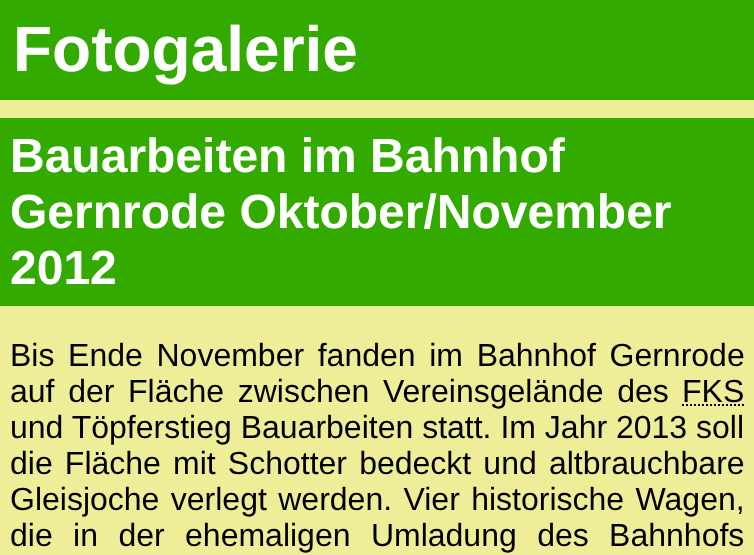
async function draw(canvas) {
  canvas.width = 754
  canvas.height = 555
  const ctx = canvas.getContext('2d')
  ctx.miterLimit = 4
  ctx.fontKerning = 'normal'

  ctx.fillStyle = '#ee9'
  ctx.fillRect(0, 0, 754, 555)
  ctx.fillStyle = '#3a0'
  ctx.fillRect(0, 0, 754, 100)
  ctx.font = 'bold 64px Liberation Sans'
  ctx.fillStyle = '#fff'
  ctx.fillText('Fotogalerie', 13, 71)
  ctx.fillStyle = '#3a0'
  ctx.fillRect(0, 118, 754, 188)
  ctx.font = 'bold 48px Liberation Sans'
  ctx.fillStyle = '#fff'
  ctx.fillText('Bauarbeiten im Bahnhof', 10, 172)
  ctx.fillText('Gernrode Oktober/November', 10, 228)
  ctx.fillText('2012', 10, 284)
  ctx.wordSpacing = '4.75px'
  ctx.font = '32px Liberation Sans'
  ctx.fillStyle = '#000'
  ctx.fillText('Bis Ende November fanden im Bahnhof Gernrode', 10, 366)
  ctx.fillText('auf der Fläche zwischen Vereinsgelände des', 10, 402)
  ctx.wordSpacing = '0px'
  ctx.fillText('FKS', 682, 402)
  ctx.beginPath()
  ctx.moveTo(682, 405)
  ctx.lineTo(744.5, 405)
  ctx.strokeStyle = '#000'
  ctx.lineWidth = 2
  ctx.setLineDash([2, 2])
  ctx.stroke()
  ctx.fillText('und Töpferstieg Bauarbeiten statt. Im Jahr 2013 soll', 10, 438)
  ctx.wordSpacing = '3.25px'
  ctx.fillText('die Fläche mit Schotter bedeckt und altbrauchbare', 10, 474)
  ctx.wordSpacing = '2.5px'
  ctx.fillText('Gleisjoche verlegt werden. Vier historische Wagen,', 10, 510)
  ctx.wordSpacing = '11.5px'
  ctx.fillText('die in der ehemaligen Umladung des Bahnhofs', 10, 546)
}

draw(document.querySelector('canvas'))
